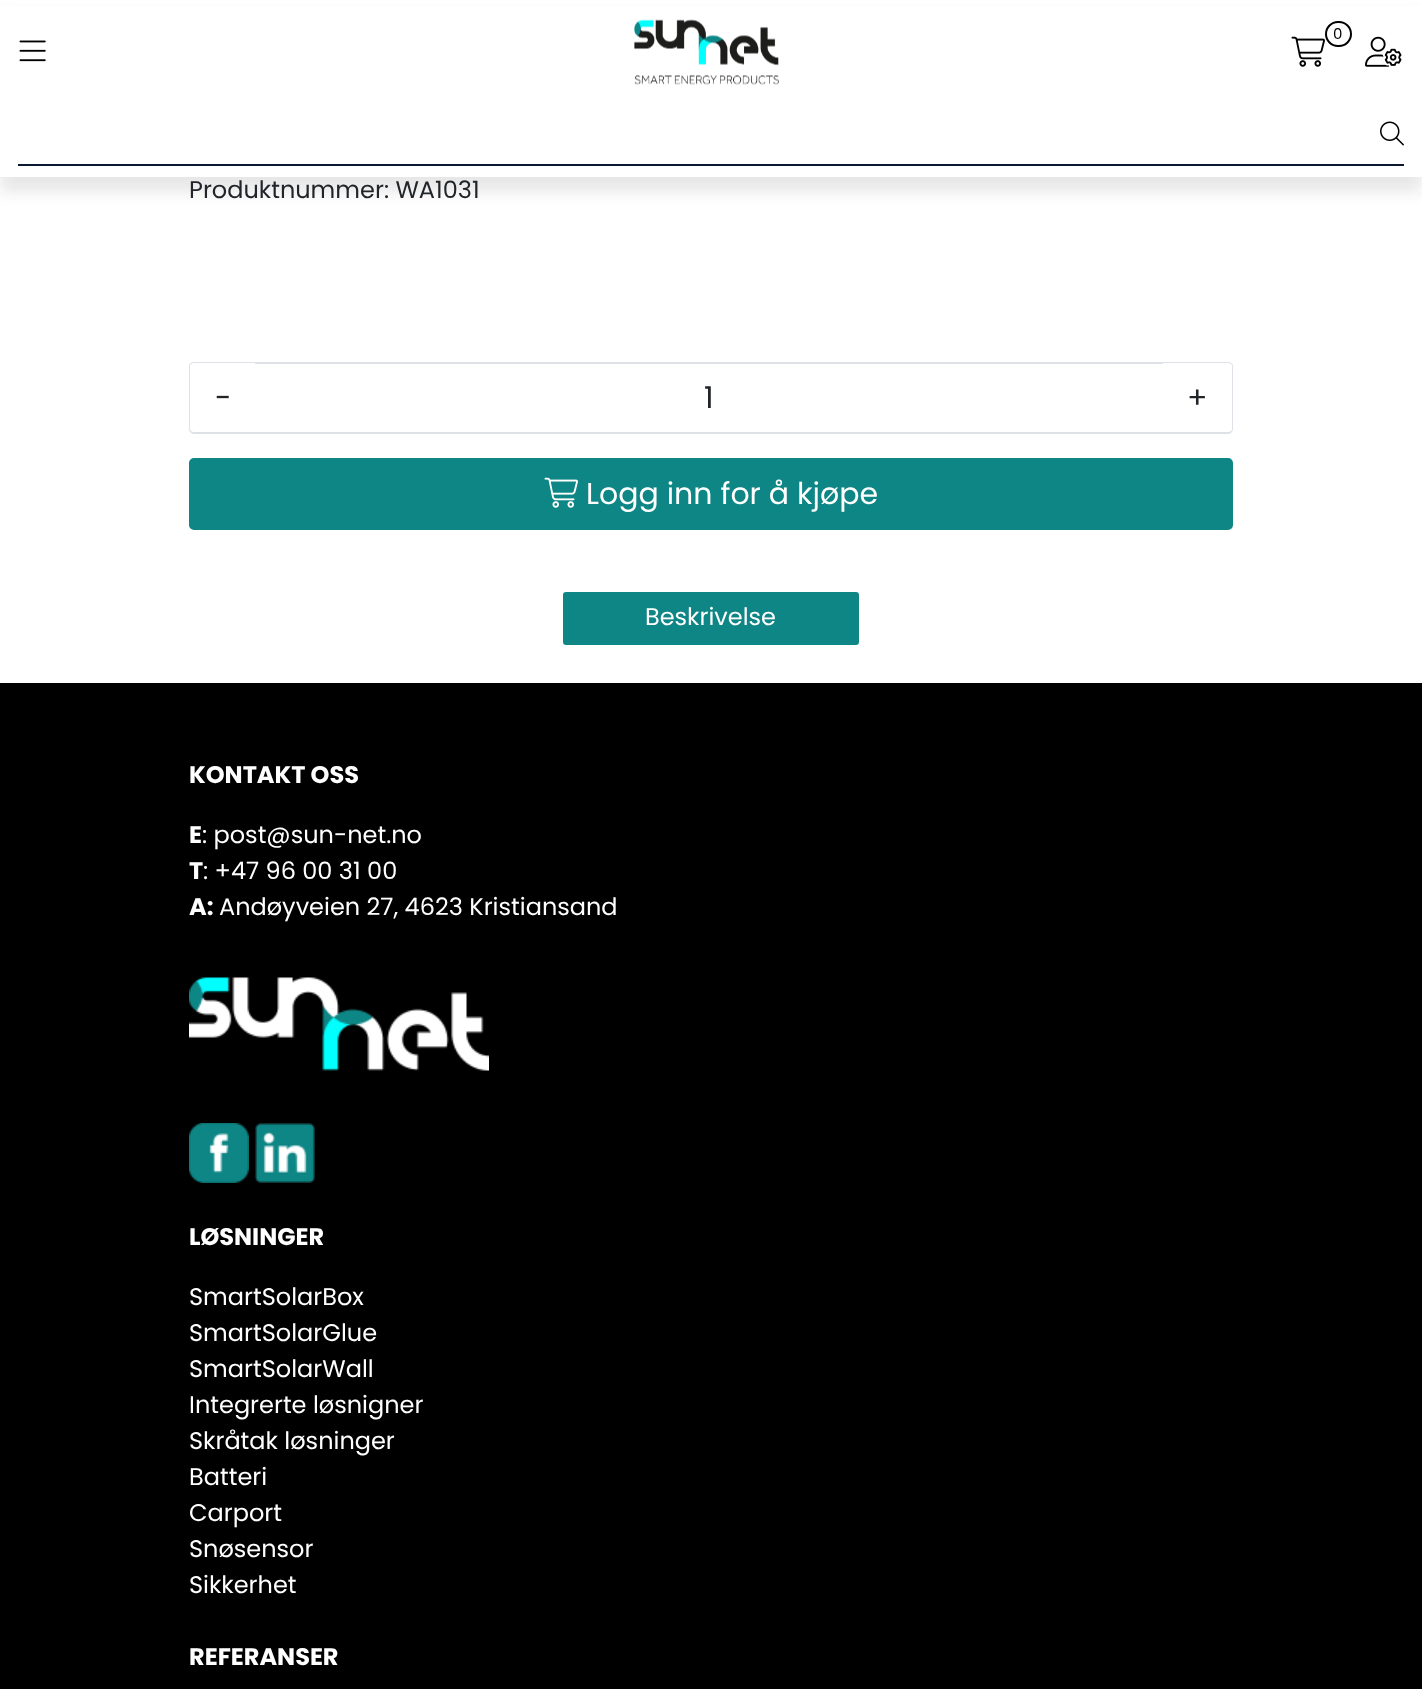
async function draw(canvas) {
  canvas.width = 1422
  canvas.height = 1689
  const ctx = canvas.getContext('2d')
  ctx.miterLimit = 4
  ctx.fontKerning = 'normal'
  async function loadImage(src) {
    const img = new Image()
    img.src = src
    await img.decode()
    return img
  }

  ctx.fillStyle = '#fff'
  ctx.fillRect(0, 0, 1422, 1689)
  ctx.fillStyle = '#1111111a'
  ctx.filter = 'blur(7.5px)'
  ctx.beginPath()
  ctx.rect(0, 15, 1422, 177)
  ctx.fill()
  ctx.filter = 'none'
  ctx.fillStyle = '#fff'
  ctx.fillRect(0, 6, 1422, 171)
  ctx.drawImage(await loadImage('image0.png'), 634, 19, 145, 66)
  ctx.beginPath()
  ctx.roundRect(1326, 22, 25, 24, 12)
  ctx.strokeStyle = '#000'
  ctx.lineWidth = 2
  ctx.stroke()
  ctx.font = '15px Poppins'
  ctx.fillStyle = '#000'
  ctx.fillText('0', 1333, 39)
  ctx.drawImage(await loadImage('image1.png'), 1291, 36, 34, 31)
  ctx.drawImage(await loadImage('image2.png'), 1365, 36, 37, 31)
  ctx.drawImage(await loadImage('image3.png'), 19, 40, 27, 22)
  ctx.drawImage(await loadImage('image4.png'), 1380, 121, 24, 25)
  ctx.fillStyle = '#0a192f'
  ctx.fillRect(18, 164, 1386, 2)
  ctx.font = '24px Poppins'
  ctx.fillStyle = '#212529'
  ctx.fillText('Produktnummer: WA1031', 189, 198)
  ctx.fillStyle = '#dee2e6'
  ctx.fillRect(254, 362, 910, 2)
  ctx.fillRect(254, 432, 910, 2)
  ctx.fillStyle = '#fff'
  ctx.beginPath()
  ctx.roundRect(189, 362, 66, 72, [5, 0, 0, 5])
  ctx.fill()
  ctx.fillStyle = '#dee2e6'
  ctx.beginPath()
  ctx.moveTo(194, 362)
  ctx.lineTo(255, 362)
  ctx.lineTo(255, 434)
  ctx.lineTo(194, 434)
  ctx.bezierCurveTo(191, 434, 189, 431, 189, 429)
  ctx.lineTo(189, 366)
  ctx.bezierCurveTo(189, 364, 191, 362, 194, 362)
  ctx.closePath()
  ctx.moveTo(194, 363)
  ctx.lineTo(255, 363)
  ctx.lineTo(255, 432)
  ctx.lineTo(194, 432)
  ctx.bezierCurveTo(192, 432, 190, 431, 190, 429)
  ctx.lineTo(190, 366)
  ctx.bezierCurveTo(190, 364, 192, 363, 194, 363)
  ctx.closePath()
  ctx.fill('evenodd')
  ctx.font = '30px Poppins'
  ctx.fillStyle = '#212529'
  ctx.fillText('-', 215, 408)
  ctx.fillText('1', 704, 408)
  ctx.fillStyle = '#fff'
  ctx.beginPath()
  ctx.roundRect(1163, 362, 70, 72, [0, 5, 5, 0])
  ctx.fill()
  ctx.fillStyle = '#dee2e6'
  ctx.beginPath()
  ctx.moveTo(1162, 362)
  ctx.lineTo(1228, 362)
  ctx.bezierCurveTo(1231, 362, 1233, 364, 1233, 366)
  ctx.lineTo(1233, 429)
  ctx.bezierCurveTo(1233, 431, 1231, 434, 1228, 434)
  ctx.lineTo(1162, 434)
  ctx.closePath()
  ctx.moveTo(1162, 363)
  ctx.lineTo(1228, 363)
  ctx.bezierCurveTo(1230, 363, 1232, 364, 1232, 366)
  ctx.lineTo(1232, 429)
  ctx.bezierCurveTo(1232, 431, 1230, 432, 1228, 432)
  ctx.lineTo(1162, 432)
  ctx.closePath()
  ctx.fill('evenodd')
  ctx.fillStyle = '#212529'
  ctx.fillText('+', 1187, 408)
  ctx.fillStyle = '#0e8685'
  ctx.beginPath()
  ctx.roundRect(190, 459, 1042, 70, 4)
  ctx.fill()
  ctx.strokeStyle = '#0e8685'
  ctx.stroke()
  ctx.drawImage(await loadImage('image5.png'), 544, 477, 34, 31)
  ctx.fillStyle = '#fff'
  ctx.fillText('Logg inn for å kjøpe', 586, 504)
  ctx.fillStyle = '#0e8685'
  ctx.beginPath()
  ctx.roundRect(562, 591, 298, 55, 4)
  ctx.fill()
  ctx.strokeStyle = '#fff'
  ctx.stroke()
  ctx.font = '24px Poppins'
  ctx.fillStyle = '#fff'
  ctx.fillText('Beskrivelse', 645, 625)
  ctx.fillStyle = '#000'
  ctx.fillRect(0, 683, 1422, 1006)
  ctx.font = 'bold 24px Poppins'
  ctx.fillStyle = '#fff'
  ctx.fillText('KONTAKT OSS', 189, 783)
  ctx.fillText('E', 189, 843)
  ctx.font = '24px Poppins'
  ctx.fillText(': post@sun-net.no', 202, 843)
  ctx.font = 'bold 24px Poppins'
  ctx.fillText('T', 189, 879)
  ctx.font = '24px Poppins'
  ctx.fillText(': +47 96 00 31 00', 203, 879)
  ctx.font = 'bold 24px Poppins'
  ctx.fillText('A:', 189, 915)
  ctx.font = '24px Poppins'
  ctx.fillText('Andøyveien 27, 4623 Kristiansand', 219, 915)
  ctx.drawImage(await loadImage('image6.png'), 189, 977, 300, 94)
  ctx.drawImage(await loadImage('image7.png'), 189, 1123, 60, 60)
  ctx.drawImage(await loadImage('image8.png'), 255, 1123, 60, 60)
  ctx.font = 'bold 24px Poppins'
  ctx.fillText('LØSNINGER', 189, 1245)
  ctx.font = '24px Poppins'
  ctx.fillText('SmartSolarBox', 189, 1305)
  ctx.fillText('SmartSolarGlue', 189, 1341)
  ctx.fillText('SmartSolarWall', 189, 1377)
  ctx.fillText('Integrerte løsnigner', 189, 1413)
  ctx.fillText('Skråtak løsninger', 189, 1449)
  ctx.fillText('Batteri', 189, 1485)
  ctx.fillText('Carport', 189, 1521)
  ctx.fillText('Snøsensor', 189, 1557)
  ctx.fillText('Sikkerhet', 189, 1593)
  ctx.font = 'bold 24px Poppins'
  ctx.fillText('REFERANSER', 189, 1665)
}

draw(document.querySelector('canvas'))
